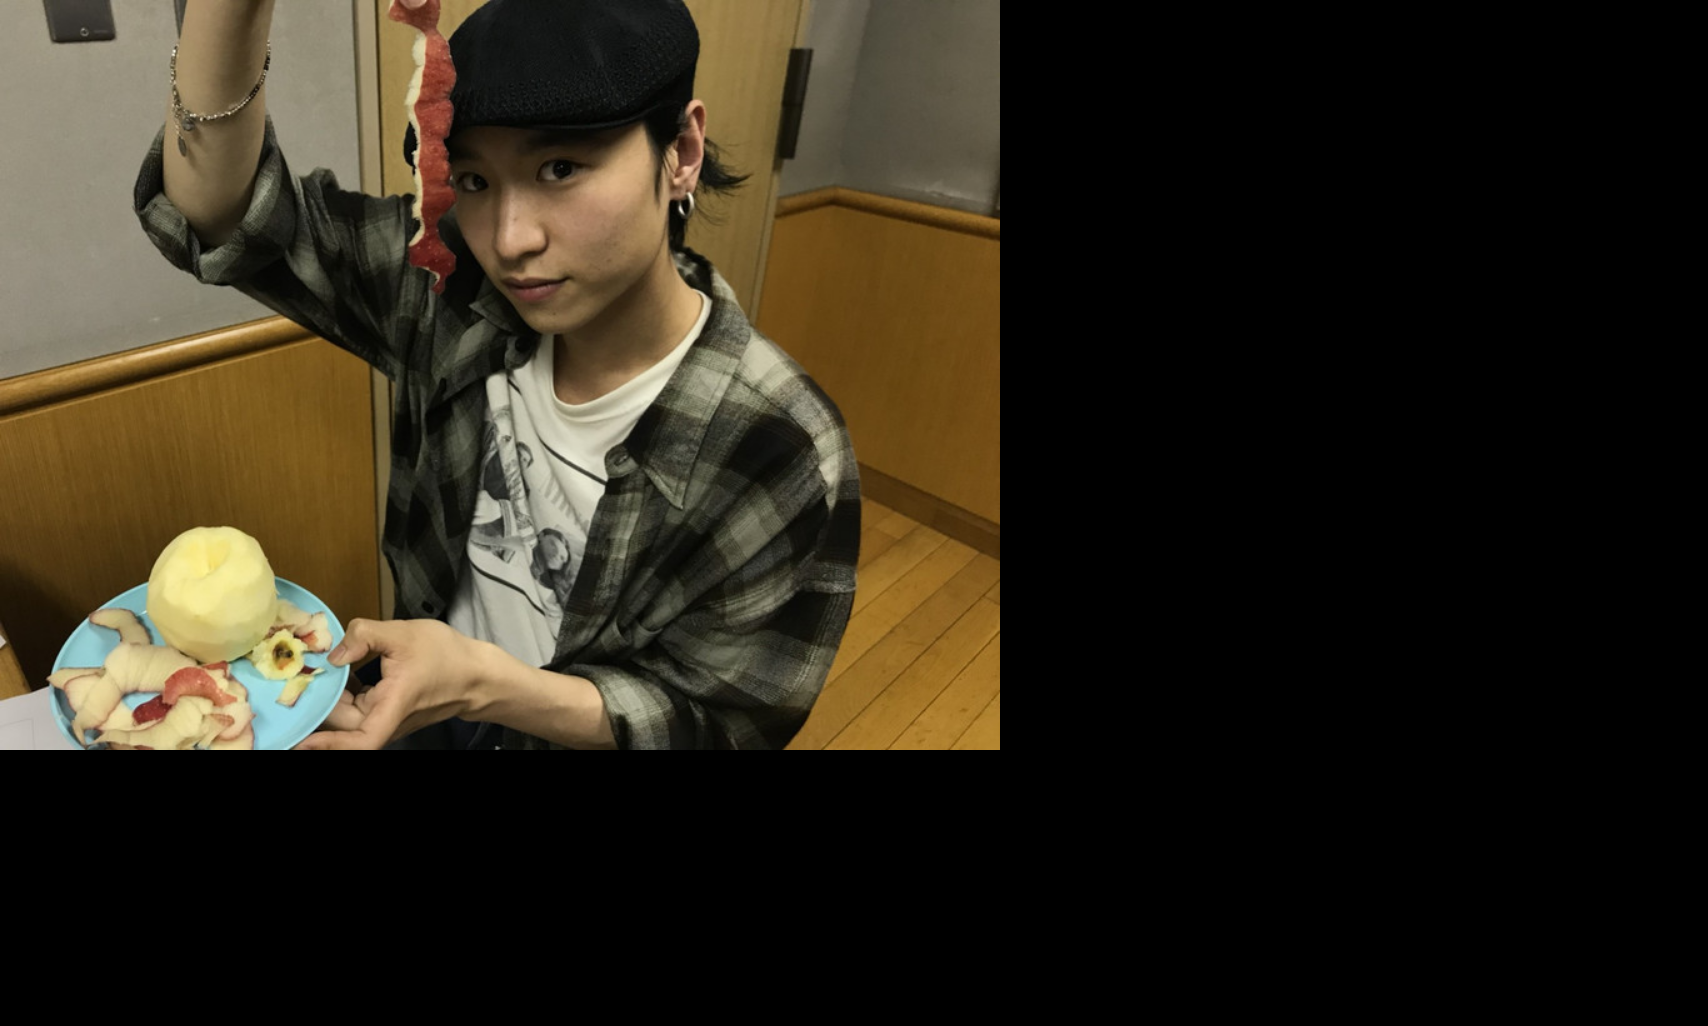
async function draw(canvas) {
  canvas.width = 1708
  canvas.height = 1026
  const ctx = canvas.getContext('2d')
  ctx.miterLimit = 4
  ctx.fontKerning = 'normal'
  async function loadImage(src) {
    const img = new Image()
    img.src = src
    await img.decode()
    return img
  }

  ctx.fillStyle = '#000'
  ctx.fillRect(0, 0, 1708, 1026)
  ctx.drawImage(await loadImage('image0.png'), 0, 0, 1000, 750)
}

draw(document.querySelector('canvas'))
